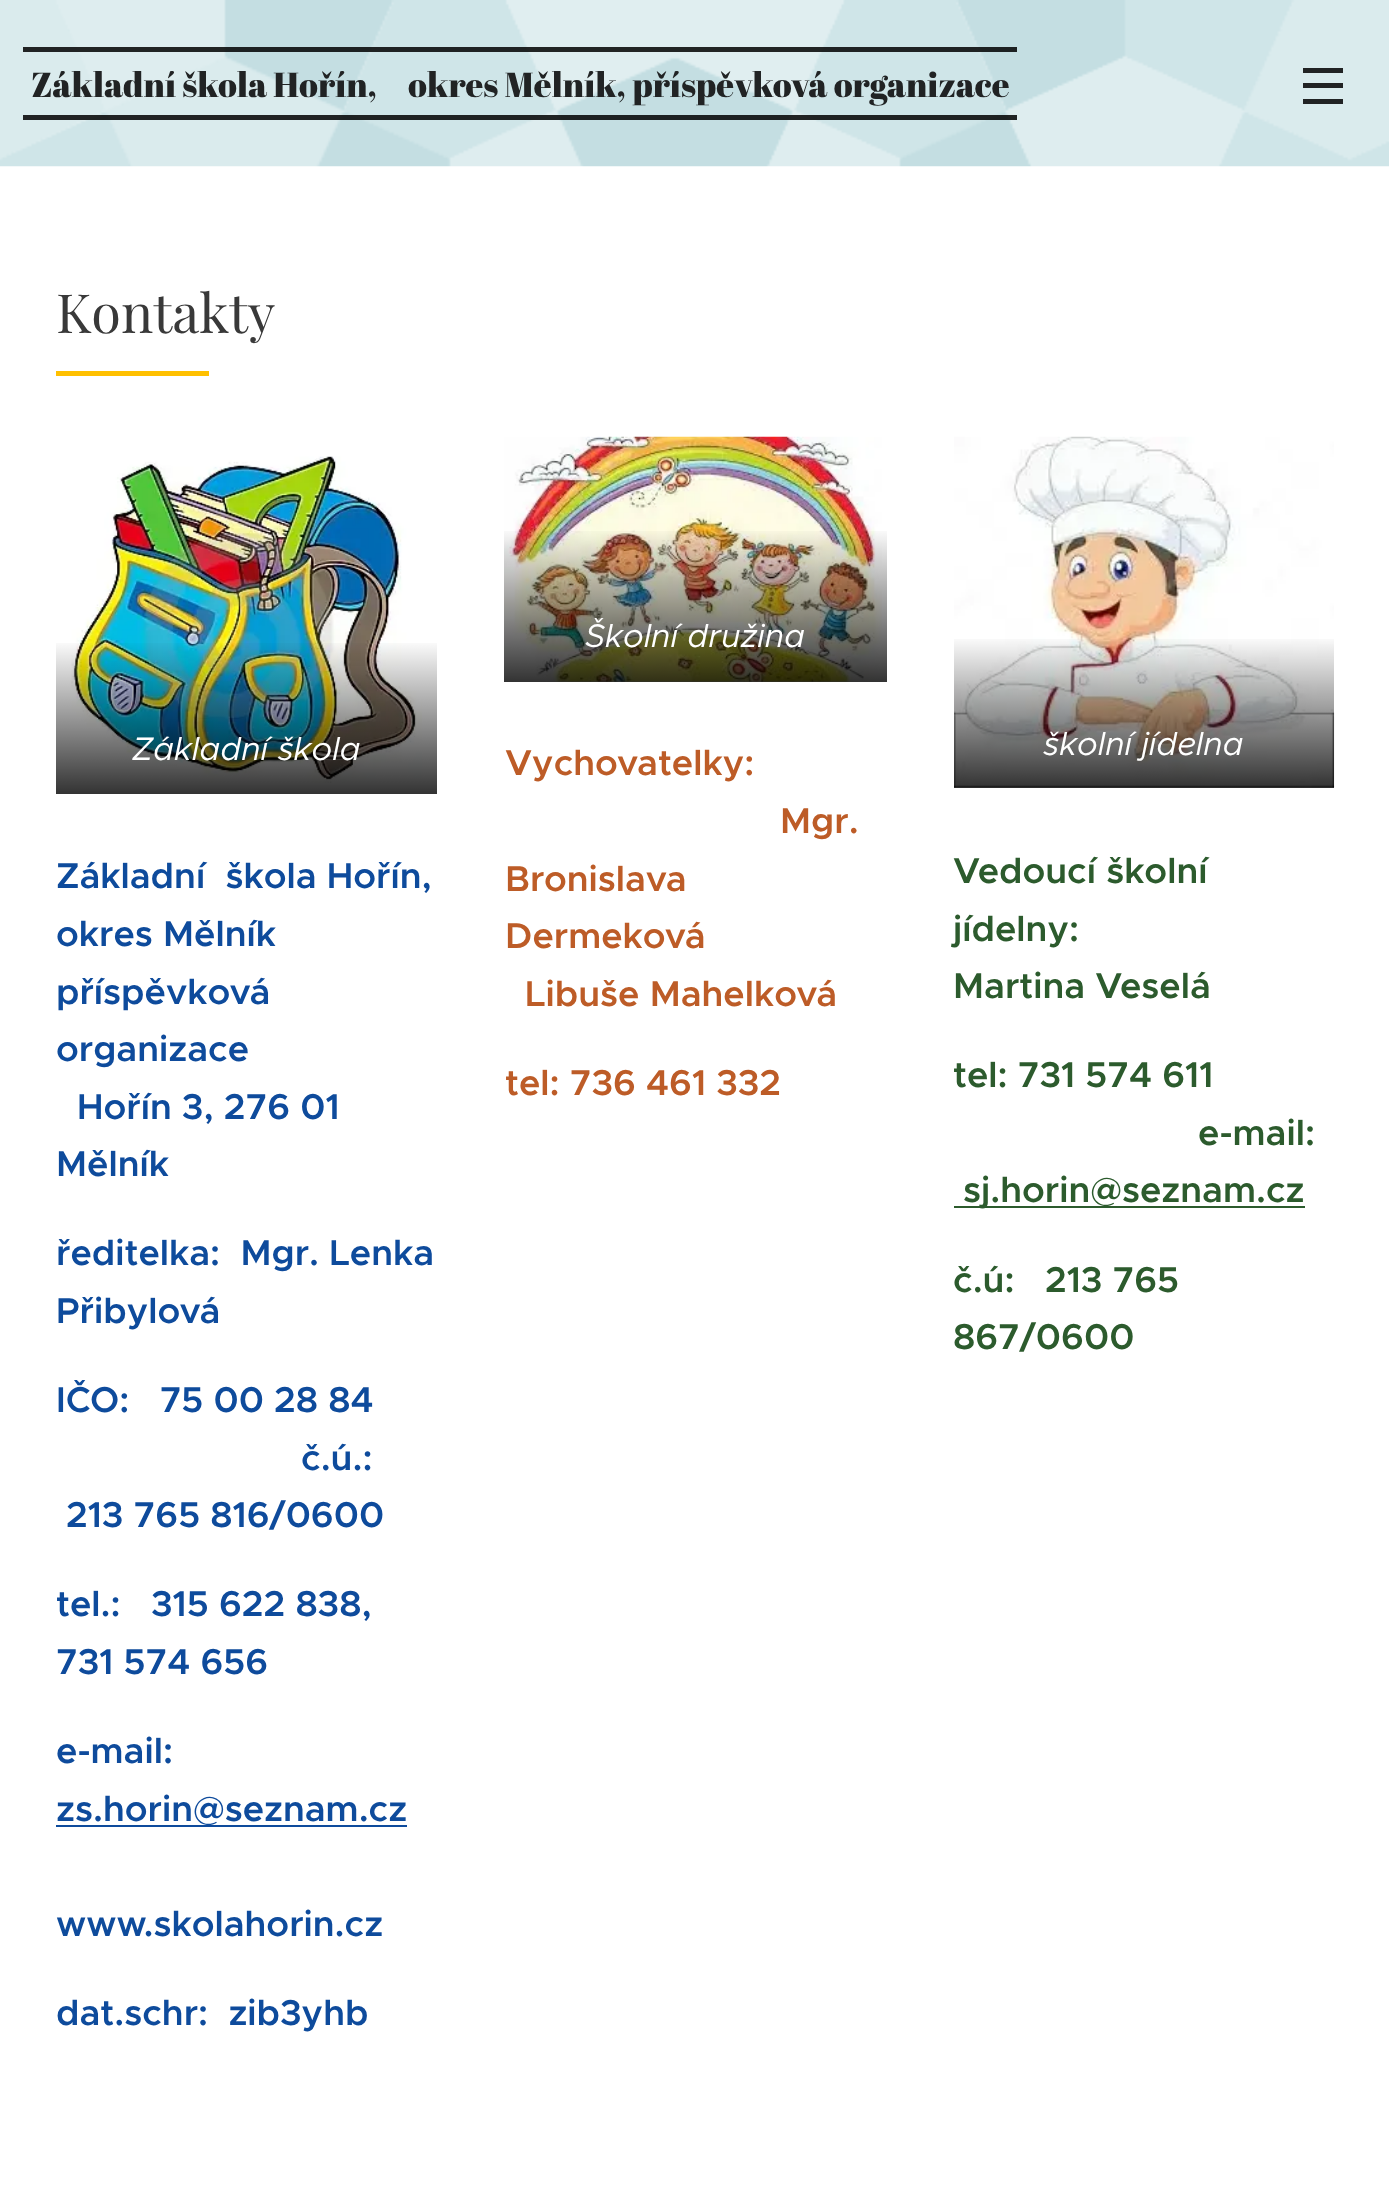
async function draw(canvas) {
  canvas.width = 1389
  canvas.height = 2199
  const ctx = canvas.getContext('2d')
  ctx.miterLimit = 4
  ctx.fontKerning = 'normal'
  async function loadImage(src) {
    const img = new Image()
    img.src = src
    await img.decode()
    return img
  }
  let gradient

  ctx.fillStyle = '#fff'
  ctx.fillRect(0, 0, 1389, 2199)
  ctx.drawImage(await loadImage('image0.png'), 0, 0, 1389, 167)
  ctx.fillStyle = '#000000d9'
  ctx.fillRect(23, 47, 994, 5)
  ctx.fillRect(23, 115, 994, 5)
  ctx.font = '34.8px Abril Fatface'
  ctx.fillStyle = '#212324'
  ctx.fillText('Základní škola', 31, 97)
  ctx.fillText('Hořín,     okres Mělník, příspěvková organizace', 273, 97)
  ctx.fillRect(1303, 83, 40, 5)
  ctx.fillRect(1303, 68, 40, 5)
  ctx.fillRect(1303, 99, 40, 5)
  ctx.font = '54px Playfair Display'
  ctx.fillStyle = '#393939'
  ctx.fillText('Kontakty', 56, 333)
  ctx.fillStyle = '#ffc000'
  ctx.fillRect(56, 371, 153, 5)
  ctx.drawImage(await loadImage('image1.png'), 71, 456, 351, 327)
  gradient = ctx.createLinearGradient(246, 639, 246, 794)
  gradient.addColorStop(0, '#00000000')
  gradient.addColorStop(1, '#000000cc')
  ctx.fillStyle = gradient
  ctx.fillRect(56, 643, 381, 151)
  ctx.font = 'italic 32.75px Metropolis'
  ctx.fillStyle = '#fff'
  ctx.fillText('Základní škola', 132, 760)
  ctx.font = '600 36px Metropolis'
  ctx.fillStyle = '#0e4b9c'
  ctx.fillText('Základní  škola Hořín,', 56, 888)
  ctx.fillText('okres Mělník', 56, 946)
  ctx.fillText('příspěvková', 56, 1004)
  ctx.fillText('organizace', 56, 1061)
  ctx.fillText('Hořín 3, 276 01', 77, 1119)
  ctx.fillText('Mělník', 56, 1176)
  ctx.fillText('ředitelka:  Mgr. Lenka', 56, 1265)
  ctx.fillText('Přibylová', 56, 1323)
  ctx.fillText('IČO:   75 00 28 84', 56, 1412)
  ctx.fillText('č.ú.:', 301, 1470)
  ctx.fillText('213 765 816/0600', 66, 1527)
  ctx.fillText('tel.:   315 622 838,', 56, 1616)
  ctx.fillText('731 574 656', 56, 1674)
  ctx.fillText('e-mail:', 56, 1763)
  ctx.fillRect(56, 1825, 351, 2)
  ctx.fillText('zs.horin@seznam.cz', 56, 1821)
  ctx.fillText('www.skolahorin.cz', 56, 1936)
  ctx.fillText('dat.schr:  zib3yhb', 56, 2025)
  ctx.drawImage(await loadImage('image2.png'), 504, 436, 378, 246)
  gradient = ctx.createLinearGradient(695, 527, 695, 682)
  gradient.addColorStop(0, '#00000000')
  gradient.addColorStop(1, '#000000cc')
  ctx.fillStyle = gradient
  ctx.fillRect(504, 531, 383, 151)
  ctx.font = 'italic 32.75px Metropolis'
  ctx.fillStyle = '#fff'
  ctx.fillText('Školní družina', 585, 647)
  ctx.font = '600 36px Metropolis'
  ctx.fillStyle = '#bd5c27'
  ctx.fillText('Vychovatelky:', 505, 775)
  ctx.fillText('Mgr.', 780, 833)
  ctx.fillText('Bronislava', 505, 891)
  ctx.fillText('Dermeková', 505, 948)
  ctx.fillText('Libuše Mahelková', 525, 1006)
  ctx.fillText('tel: 736 461 332', 505, 1095)
  ctx.drawImage(await loadImage('image3.png'), 954, 436, 381, 352)
  gradient = ctx.createLinearGradient(1144, 635, 1144, 788)
  gradient.addColorStop(0, '#00000000')
  gradient.addColorStop(1, '#000000cc')
  ctx.fillStyle = gradient
  ctx.fillRect(954, 639, 380, 149)
  ctx.font = 'italic 32.75px Metropolis'
  ctx.fillStyle = '#fff'
  ctx.fillText('školní jídelna', 1043, 755)
  ctx.font = '600 36px Metropolis'
  ctx.fillStyle = '#2c5b2d'
  ctx.fillText('Vedoucí školní', 953, 883)
  ctx.fillText('jídelny:', 953, 941)
  ctx.fillText('Martina Veselá', 953, 998)
  ctx.fillText('tel: 731 574 611', 953, 1087)
  ctx.fillText('e-mail:', 1198, 1145)
  ctx.fillRect(954, 1206, 351, 2)
  ctx.fillText('sj.horin@seznam.cz', 963, 1202)
  ctx.fillText('č.ú:   213 765', 953, 1292)
  ctx.fillText('867/0600', 953, 1349)
}

draw(document.querySelector('canvas'))
